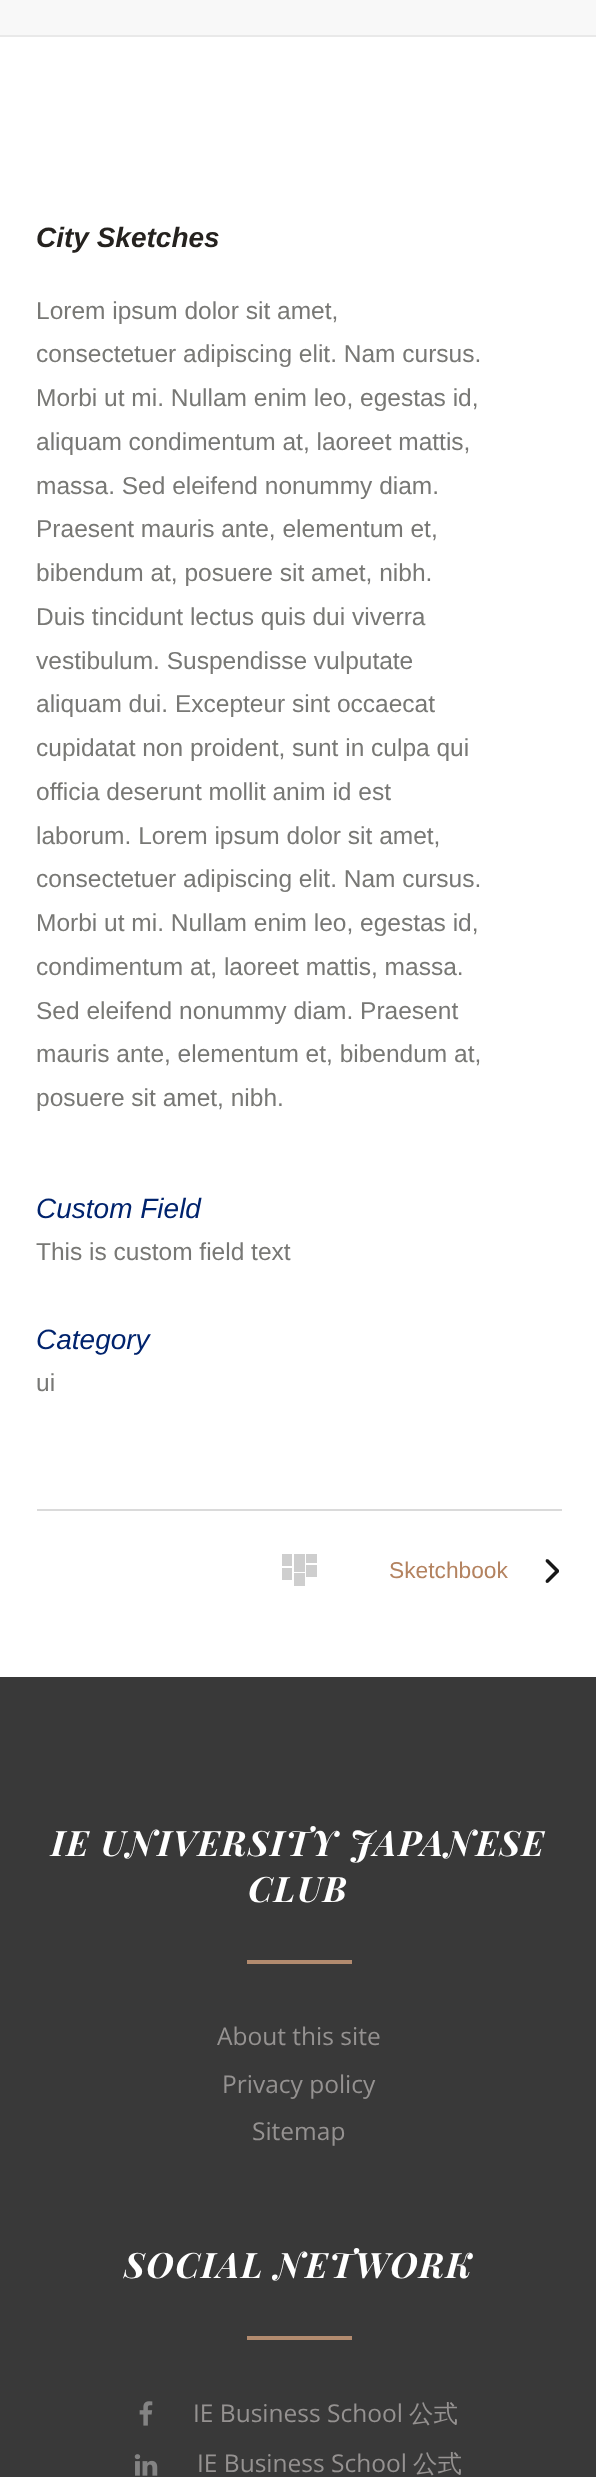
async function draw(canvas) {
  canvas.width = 596
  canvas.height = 2477
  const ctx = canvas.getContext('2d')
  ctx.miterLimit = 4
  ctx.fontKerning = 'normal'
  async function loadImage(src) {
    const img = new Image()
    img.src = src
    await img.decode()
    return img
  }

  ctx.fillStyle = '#fff'
  ctx.fillRect(0, 0, 596, 2477)
  ctx.fillStyle = '#f8f8f8'
  ctx.fillRect(0, 0, 596, 35)
  ctx.fillStyle = '#e9e9e9'
  ctx.fillRect(0, 35, 596, 2)
  ctx.font = 'italic bold 28px Liberation Sans'
  ctx.fillStyle = '#25221f'
  ctx.fillText('City Sketches', 36, 247)
  ctx.font = '24.5px Liberation Sans'
  ctx.fillStyle = '#787875'
  ctx.fillText('Lorem ipsum dolor sit amet,', 36, 319)
  ctx.fillText('consectetuer adipiscing elit. Nam cursus.', 36, 362)
  ctx.fillText('Morbi ut mi. Nullam enim leo, egestas id,', 36, 406)
  ctx.fillText('aliquam condimentum at, laoreet mattis,', 36, 450)
  ctx.fillText('massa. Sed eleifend nonummy diam.', 36, 494)
  ctx.fillText('Praesent mauris ante, elementum et,', 36, 537)
  ctx.fillText('bibendum at, posuere sit amet, nibh.', 36, 581)
  ctx.fillText('Duis tincidunt lectus quis dui viverra', 36, 625)
  ctx.fillText('vestibulum. Suspendisse vulputate', 36, 669)
  ctx.fillText('aliquam dui. Excepteur sint occaecat', 36, 712)
  ctx.fillText('cupidatat non proident, sunt in culpa qui', 36, 756)
  ctx.fillText('officia deserunt mollit anim id est', 36, 800)
  ctx.fillText('laborum. Lorem ipsum dolor sit amet,', 36, 844)
  ctx.fillText('consectetuer adipiscing elit. Nam cursus.', 36, 887)
  ctx.fillText('Morbi ut mi. Nullam enim leo, egestas id,', 36, 931)
  ctx.fillText('condimentum at, laoreet mattis, massa.', 36, 975)
  ctx.fillText('Sed eleifend nonummy diam. Praesent', 36, 1019)
  ctx.fillText('mauris ante, elementum et, bibendum at,', 36, 1062)
  ctx.fillText('posuere sit amet, nibh.', 36, 1106)
  ctx.font = 'italic 28px Liberation Sans'
  ctx.fillStyle = '#00236d'
  ctx.fillText('Custom Field', 36, 1218)
  ctx.font = '24.5px Liberation Sans'
  ctx.fillStyle = '#787875'
  ctx.fillText('This is custom field text', 36, 1260)
  ctx.font = 'italic 28px Liberation Sans'
  ctx.fillStyle = '#00236d'
  ctx.fillText('Category', 36, 1349)
  ctx.font = '24.5px Liberation Sans'
  ctx.fillStyle = '#787875'
  ctx.fillText('ui', 36, 1391)
  ctx.fillStyle = '#dadada'
  ctx.fillRect(37, 1509, 525, 2)
  ctx.fillStyle = '#cecece'
  ctx.fillRect(282, 1554, 10, 12)
  ctx.fillRect(294, 1554, 11, 18)
  ctx.fillRect(306, 1554, 11, 9)
  ctx.fillRect(282, 1568, 10, 12)
  ctx.fillRect(294, 1573, 11, 13)
  ctx.fillRect(306, 1565, 11, 12)
  ctx.font = '22.75px Liberation Sans'
  ctx.fillStyle = '#b48360'
  ctx.fillText('Sketchbook', 389, 1578)
  ctx.fillStyle = '#171717'
  ctx.beginPath()
  ctx.moveTo(548.5, 1559.5)
  ctx.lineTo(558.5, 1569.5)
  ctx.bezierCurveTo(559, 1570, 559, 1571.5, 558.5, 1572)
  ctx.bezierCurveTo(557.5, 1572.5, 556.5, 1572.5, 556, 1572)
  ctx.lineTo(546, 1562)
  ctx.bezierCurveTo(545.5, 1561.5, 545.5, 1560.5, 546, 1559.5)
  ctx.bezierCurveTo(546.5, 1559, 547.5, 1559, 548.5, 1559.5)
  ctx.closePath()
  ctx.fill()
  ctx.beginPath()
  ctx.moveTo(546, 1580)
  ctx.lineTo(556, 1570)
  ctx.bezierCurveTo(556.5, 1569.5, 557.5, 1569.5, 558.5, 1570)
  ctx.bezierCurveTo(559, 1571, 559, 1572, 558.5, 1572.5)
  ctx.lineTo(548.5, 1582.5)
  ctx.bezierCurveTo(547.5, 1583, 546.5, 1583, 546, 1582.5)
  ctx.bezierCurveTo(545.5, 1582, 545.5, 1580.5, 546, 1580)
  ctx.closePath()
  ctx.fill()
  ctx.fillStyle = '#393939'
  ctx.fillRect(0, 1677, 596, 800)
  ctx.letterSpacing = '1.75px'
  ctx.font = 'italic bold 35px Playfair Display'
  ctx.fillStyle = '#fff'
  ctx.fillText('IE UNIVERSITY JAPANESE', 51, 1856)
  ctx.fillText('CLUB', 248, 1902)
  ctx.fillStyle = '#b28b6f'
  ctx.fillRect(247, 1960, 105, 4)
  ctx.letterSpacing = '0px'
  ctx.font = '24.5px Open Sans'
  ctx.fillStyle = '#959291'
  ctx.fillText('About this site', 217, 2045)
  ctx.fillText('Privacy policy', 222, 2093)
  ctx.fillText('Sitemap', 252, 2140)
  ctx.letterSpacing = '1.75px'
  ctx.font = 'italic bold 35px Playfair Display'
  ctx.fillStyle = '#fff'
  ctx.fillText('SOCIAL NETWORK', 124, 2278)
  ctx.fillStyle = '#b28b6f'
  ctx.fillRect(247, 2336, 105, 4)
  ctx.drawImage(await loadImage('image0.png'), 139, 2401, 14, 25)
  ctx.letterSpacing = '0px'
  ctx.font = '24.5px Open Sans'
  ctx.fillStyle = '#959291'
  ctx.fillText('IE Business School', 193, 2422)
  ctx.font = '500 24.5px WenQuanYi Zen Hei'
  ctx.fillText('公式', 409, 2422)
  ctx.drawImage(await loadImage('image1.png'), 134, 2454, 24, 22)
  ctx.font = '24.5px Open Sans'
  ctx.fillText('IE Business School', 197, 2472)
  ctx.font = '500 24.5px WenQuanYi Zen Hei'
  ctx.fillText('公式', 413, 2472)
}

draw(document.querySelector('canvas'))
